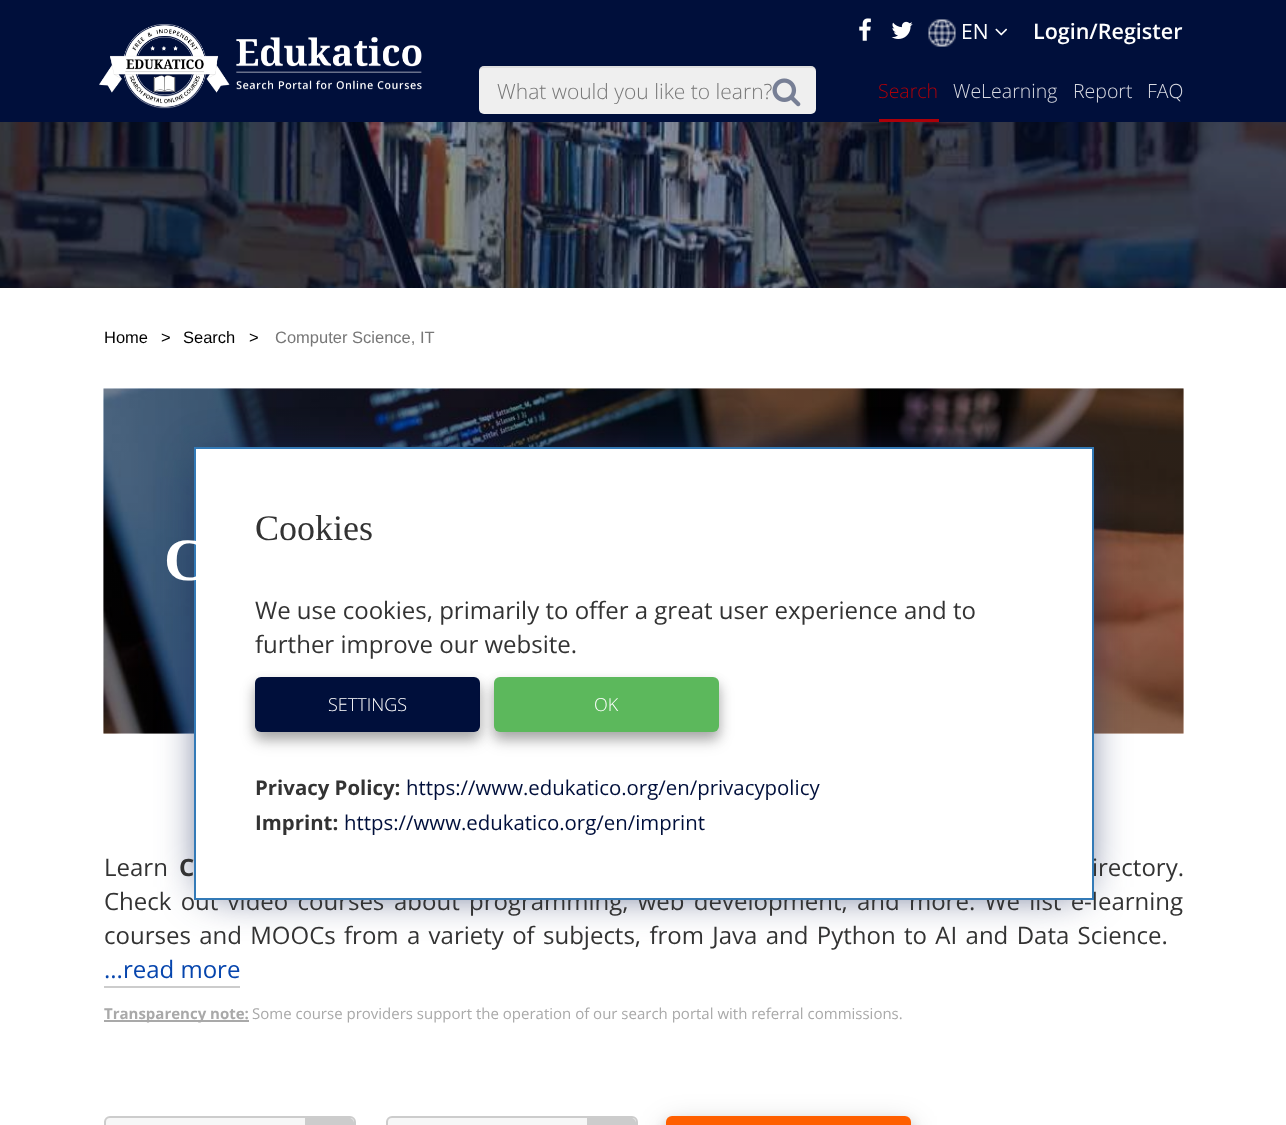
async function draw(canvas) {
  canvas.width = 1286
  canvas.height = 1125
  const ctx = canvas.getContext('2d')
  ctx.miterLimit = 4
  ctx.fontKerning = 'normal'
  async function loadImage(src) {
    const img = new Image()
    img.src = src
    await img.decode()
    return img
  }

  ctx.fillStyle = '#fff'
  ctx.fillRect(0, 0, 1286, 1125)
  ctx.fillStyle = '#000f3b'
  ctx.fillRect(0, 0, 1286, 122)
  ctx.drawImage(await loadImage('image0.png'), 859, 18, 12, 23)
  ctx.drawImage(await loadImage('image1.png'), 891, 21, 22, 18)
  ctx.drawImage(await loadImage('image2.png'), 928, 19, 28, 28)
  ctx.font = '21px Open Sans'
  ctx.fillStyle = '#fff'
  ctx.fillText('EN', 961, 39)
  ctx.drawImage(await loadImage('image3.png'), 995, 28, 13, 8)
  ctx.font = '600 21.5px Open Sans'
  ctx.fillText('Login/Register', 1033, 39)
  ctx.drawImage(await loadImage('image4.png'), 99, 24, 323, 85)
  ctx.fillStyle = '#efefef'
  ctx.beginPath()
  ctx.roundRect(479, 66, 337, 48, 5)
  ctx.fill()
  ctx.fillStyle = '#00000012'
  ctx.beginPath()
  ctx.moveTo(483, 68)
  ctx.lineTo(812, 68)
  ctx.bezierCurveTo(814, 68, 816, 70, 816, 72)
  ctx.lineTo(816, 71)
  ctx.bezierCurveTo(816, 68, 814, 66, 811, 66)
  ctx.lineTo(484, 66)
  ctx.bezierCurveTo(482, 66, 480, 68, 479, 70)
  ctx.bezierCurveTo(480, 69, 482, 68, 483, 68)
  ctx.closePath()
  ctx.fill()
  ctx.font = '300 21px Open Sans'
  ctx.fillStyle = '#777'
  ctx.fillText('What would you like to learn?', 497, 99)
  ctx.drawImage(await loadImage('image5.png'), 772, 78, 29, 29)
  ctx.fillStyle = '#ad0009'
  ctx.fillRect(879, 119, 60, 3)
  ctx.font = '300 19.5px Open Sans'
  ctx.fillText('Search', 878, 98)
  ctx.fillStyle = '#d9dbe2'
  ctx.fillText('WeLearning', 953, 98)
  ctx.fillText('Report', 1073, 98)
  ctx.fillText('FAQ', 1147, 98)
  ctx.drawImage(await loadImage('image6.png'), 0, 122, 1286, 166)
  ctx.font = '16.5px Liberation Sans'
  ctx.fillStyle = '#000'
  ctx.fillText('Home', 104, 343)
  ctx.fillText('>', 161, 343)
  ctx.fillText('Search', 183, 343)
  ctx.fillText('>', 249, 343)
  ctx.fillStyle = '#777'
  ctx.fillText('Computer Science, IT', 275, 343)
  ctx.drawImage(await loadImage('image7.png'), 103, 388, 1081, 346)
  ctx.fillStyle = '#1f2d5d'
  ctx.filter = 'blur(22.5px)'
  ctx.beginPath()
  ctx.rect(207, 461, 873, 426)
  ctx.fill()
  ctx.filter = 'none'
  ctx.wordSpacing = '6px'
  ctx.font = '24px Open Sans'
  ctx.fillStyle = '#333'
  ctx.fillText('irectory.', 1092, 876)
  ctx.wordSpacing = '3px'
  ctx.fillText('Check out video courses', 104, 910)
  ctx.fillText('about programming, web development, and more. We list e-learning', 394, 910)
  ctx.fillStyle = '#fff'
  ctx.beginPath()
  ctx.rect(195, 448, 898, 451)
  ctx.fill()
  ctx.strokeStyle = '#337ab7'
  ctx.lineWidth = 2
  ctx.stroke()
  ctx.wordSpacing = '0px'
  ctx.font = '36px Liberation Serif'
  ctx.fillStyle = '#333'
  ctx.fillText('Cookies', 255, 540)
  ctx.font = '24px Open Sans'
  ctx.fillText('We use cookies, primarily to offer a great user experience and to', 255, 619)
  ctx.fillText('further improve our website.', 255, 653)
  ctx.fillStyle = '#00000030'
  ctx.filter = 'blur(7.5px)'
  ctx.beginPath()
  ctx.roundRect(255, 686, 225, 55, 6)
  ctx.fill()
  ctx.filter = 'none'
  ctx.fillStyle = '#00000033'
  ctx.filter = 'blur(6px)'
  ctx.beginPath()
  ctx.roundRect(255, 683, 225, 55, 6)
  ctx.fill()
  ctx.filter = 'none'
  ctx.fillStyle = '#000f3b'
  ctx.beginPath()
  ctx.roundRect(255, 677, 225, 55, 6)
  ctx.fill()
  ctx.font = '300 18px Open Sans'
  ctx.fillStyle = '#fff'
  ctx.fillText('SETTINGS', 328, 711)
  ctx.fillStyle = '#00000030'
  ctx.filter = 'blur(7.5px)'
  ctx.beginPath()
  ctx.roundRect(494, 686, 225, 55, 6)
  ctx.fill()
  ctx.filter = 'none'
  ctx.fillStyle = '#00000033'
  ctx.filter = 'blur(6px)'
  ctx.beginPath()
  ctx.roundRect(494, 683, 225, 55, 6)
  ctx.fill()
  ctx.filter = 'none'
  ctx.fillStyle = '#5cb85c'
  ctx.beginPath()
  ctx.roundRect(494, 677, 225, 55, 6)
  ctx.fill()
  ctx.fillStyle = '#fff'
  ctx.fillText('OK', 594, 711)
  ctx.font = 'bold 20.4px Open Sans'
  ctx.fillStyle = '#333'
  ctx.fillText('Privacy Policy:', 255, 795)
  ctx.font = '20.4px Open Sans'
  ctx.fillStyle = '#000f3b'
  ctx.fillText('https://www.edukatico.org/en/privacypolicy', 406, 795)
  ctx.font = 'bold 20.4px Open Sans'
  ctx.fillStyle = '#333'
  ctx.fillText('Imprint:', 255, 830)
  ctx.font = '20.4px Open Sans'
  ctx.fillStyle = '#000f3b'
  ctx.fillText('https://www.edukatico.org/en/imprint', 344, 830)
  ctx.font = 'bold 60px Liberation Serif'
  ctx.fillStyle = '#fff'
  ctx.fillText('C', 164, 580)
  ctx.font = '24px Open Sans'
  ctx.fillStyle = '#333'
  ctx.fillText('Learn', 104, 876)
  ctx.wordSpacing = '6px'
  ctx.font = 'bold 24px Open Sans'
  ctx.fillText('C', 179, 876)
  ctx.wordSpacing = '2.1px'
  ctx.font = '24px Open Sans'
  ctx.fillText('courses and MOOCs from a variety of subjects, from Java and Python to AI and Data Science.', 104, 944)
  ctx.wordSpacing = '0px'
  ctx.fillStyle = '#0645ad'
  ctx.fillText('...read more', 104, 978)
  ctx.fillStyle = '#ccc'
  ctx.fillRect(104, 986, 136, 2)
  ctx.fillStyle = '#a9a9a9'
  ctx.fillRect(104, 1020, 145, 2)
  ctx.font = 'bold 15px Open Sans'
  ctx.fillText('Transparency note:', 104, 1019)
  ctx.font = '15px Open Sans'
  ctx.fillText('Some course providers support the operation of our search portal with referral commissions.', 252, 1019)
  ctx.fillStyle = '#f7f7f7'
  ctx.beginPath()
  ctx.roundRect(105, 1117, 250, 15, 5)
  ctx.fill()
  ctx.strokeStyle = '#ccc'
  ctx.stroke()
  ctx.fillStyle = '#ccc'
  ctx.beginPath()
  ctx.moveTo(305, 1118)
  ctx.lineTo(349, 1118)
  ctx.bezierCurveTo(352, 1118, 354, 1120, 354, 1123)
  ctx.lineTo(354, 1125)
  ctx.bezierCurveTo(354, 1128, 352, 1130, 349, 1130)
  ctx.lineTo(305, 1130)
  ctx.closePath()
  ctx.fill()
  ctx.fillStyle = '#f7f7f7'
  ctx.beginPath()
  ctx.roundRect(387, 1117, 250, 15, 5)
  ctx.fill()
  ctx.stroke()
  ctx.fillStyle = '#ccc'
  ctx.beginPath()
  ctx.moveTo(587, 1118)
  ctx.lineTo(631, 1118)
  ctx.bezierCurveTo(634, 1118, 636, 1120, 636, 1123)
  ctx.lineTo(636, 1125)
  ctx.bezierCurveTo(636, 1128, 634, 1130, 631, 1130)
  ctx.lineTo(587, 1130)
  ctx.closePath()
  ctx.fill()
  ctx.fillStyle = '#00000030'
  ctx.filter = 'blur(15px)'
  ctx.beginPath()
  ctx.roundRect(666, 1125, 245, 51, 6)
  ctx.fill()
  ctx.filter = 'none'
  ctx.fillStyle = '#00000033'
  ctx.filter = 'blur(6px)'
  ctx.beginPath()
  ctx.roundRect(666, 1122, 245, 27, 6)
  ctx.fill()
  ctx.filter = 'none'
  ctx.fillStyle = '#ff5f00'
  ctx.beginPath()
  ctx.roundRect(666, 1116, 245, 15, 6)
  ctx.fill()
}

draw(document.querySelector('canvas'))
